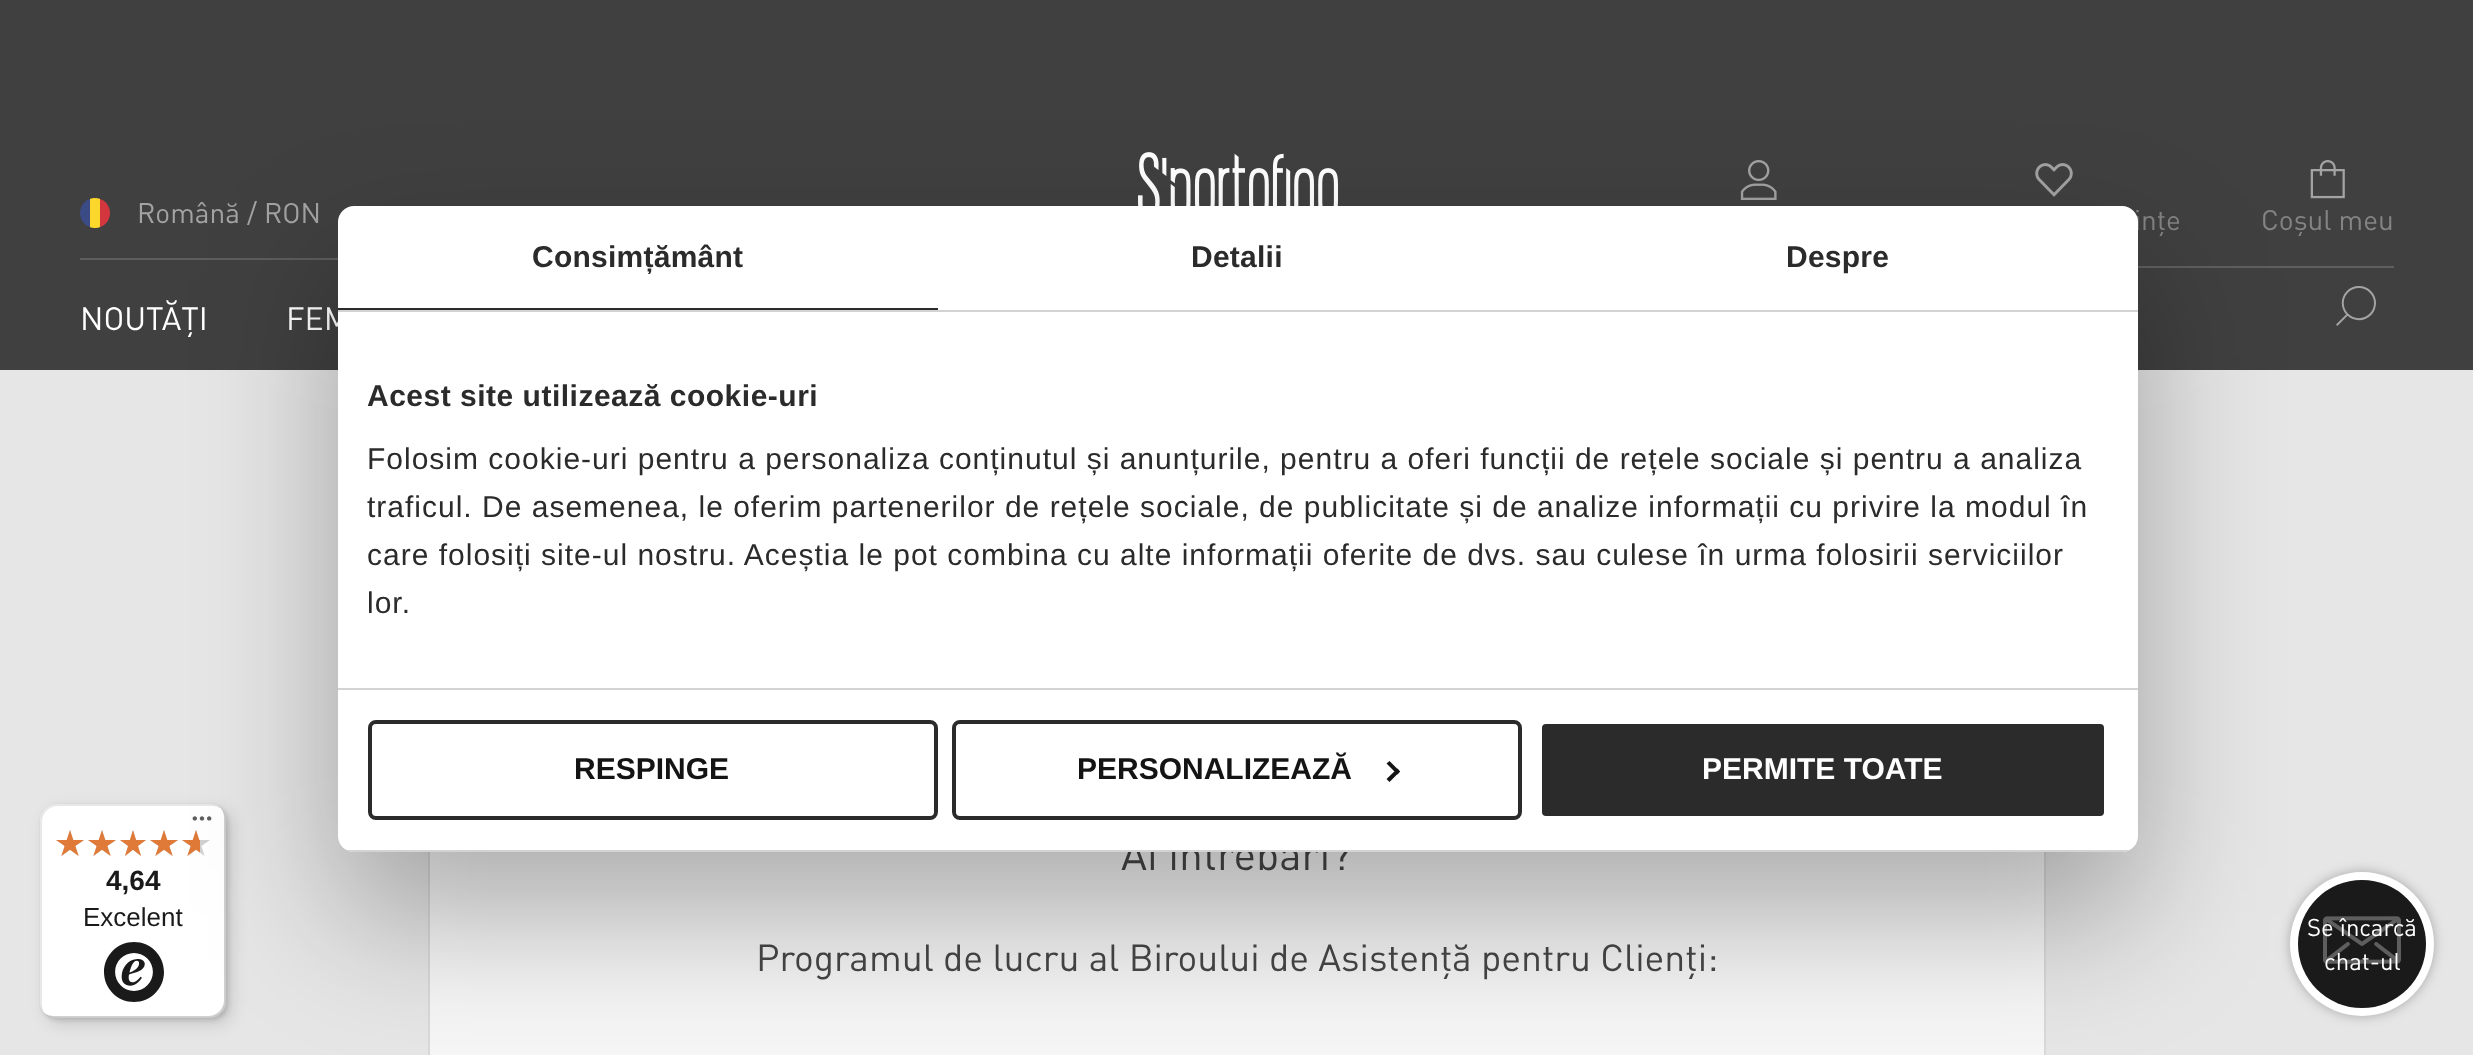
async function draw(canvas) {
  canvas.width = 2473
  canvas.height = 1055
  const ctx = canvas.getContext('2d')
  ctx.miterLimit = 4
  ctx.fontKerning = 'normal'
  async function loadImage(src) {
    const img = new Image()
    img.src = src
    await img.decode()
    return img
  }

  ctx.fillStyle = '#e6e6e6'
  ctx.fillRect(0, 0, 2473, 1055)
  ctx.fillStyle = '#404040'
  ctx.fillRect(0, 0, 2473, 370)
  ctx.drawImage(await loadImage('image0.png'), 1138, 152, 200, 54)
  ctx.fillStyle = '#5d5d5d'
  ctx.fillRect(80, 258, 258, 2)
  ctx.drawImage(await loadImage('image1.png'), 80, 198, 30, 30)
  ctx.font = '28px DIN'
  ctx.fillStyle = '#a3a3a3'
  ctx.fillText('Română / RON', 137, 223)
  ctx.drawImage(await loadImage('image2.png'), 1740, 160, 37, 40)
  ctx.drawImage(await loadImage('image3.png'), 2035, 163, 38, 34)
  ctx.fillStyle = '#848484'
  ctx.fillText('ințe', 2134, 230)
  ctx.drawImage(await loadImage('image4.png'), 2310, 160, 35, 39)
  ctx.fillText('Coșul meu', 2261, 230)
  ctx.fillStyle = '#5f5f5f'
  ctx.fillRect(2138, 266, 256, 2)
  ctx.drawImage(await loadImage('image5.png'), 2336, 286, 40, 40)
  ctx.font = '32px DIN'
  ctx.fillStyle = '#fff'
  ctx.fillText('NOUTĂȚI', 80, 330)
  ctx.fillText('FEM', 286, 330)
  ctx.fillStyle = '#f6f6f6'
  ctx.fillRect(430, 852, 1614, 203)
  ctx.strokeStyle = '#d9d9d9'
  ctx.lineWidth = 2
  ctx.strokeRect(429, 761, 1616, 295)
  ctx.font = '42.5px DIN'
  ctx.fillStyle = '#474747'
  ctx.fillText('Ai întrebări?', 1121, 870)
  ctx.font = '37.3px DIN'
  ctx.fillText('Programul de lucru al Biroului de Asistență pentru Clienți:', 756, 971)
  ctx.fillStyle = '#a8a8a8'
  ctx.filter = 'blur(6px)'
  ctx.beginPath()
  ctx.roundRect(2290, 872, 144, 144, 72)
  ctx.fill()
  ctx.filter = 'none'
  ctx.fillStyle = '#fff'
  ctx.beginPath()
  ctx.arc(2362, 944, 72, 0, 2 * Math.PI)
  ctx.fill()
  ctx.fillStyle = '#1a1a1a'
  ctx.beginPath()
  ctx.arc(2362, 944, 64, 0, 2 * Math.PI)
  ctx.fill()
  ctx.font = '24px DIN'
  ctx.fillStyle = '#fff'
  ctx.fillText('Se încarcă', 2307, 936)
  ctx.fillText('chat-ul', 2324, 970)
  ctx.drawImage(await loadImage('image6.png'), 2323, 916, 78, 48)
  ctx.fillStyle = '#1a1a1a26'
  ctx.filter = 'blur(8px)'
  ctx.beginPath()
  ctx.roundRect(46, 810, 186, 214, 16)
  ctx.fill()
  ctx.filter = 'none'
  ctx.filter = 'blur(2px)'
  ctx.beginPath()
  ctx.roundRect(42, 806, 186, 214, 16)
  ctx.fill()
  ctx.filter = 'none'
  ctx.fillStyle = '#fff'
  ctx.beginPath()
  ctx.roundRect(40, 804, 186, 214, 16)
  ctx.fill()
  ctx.fillStyle = '#1a1a1a1a'
  ctx.beginPath()
  ctx.moveTo(58, 806)
  ctx.lineTo(212, 806)
  ctx.bezierCurveTo(216, 806, 219, 807, 222, 809)
  ctx.bezierCurveTo(219, 806, 215, 804, 210, 804)
  ctx.lineTo(56, 804)
  ctx.bezierCurveTo(47, 804, 40, 811, 40, 820)
  ctx.lineTo(40, 1002)
  ctx.bezierCurveTo(40, 1007, 42, 1011, 45, 1014)
  ctx.bezierCurveTo(43, 1011, 42, 1008, 42, 1004)
  ctx.lineTo(42, 822)
  ctx.bezierCurveTo(42, 813, 49, 806, 58, 806)
  ctx.closePath()
  ctx.fill()
  ctx.fillStyle = '#1a1a1a33'
  ctx.beginPath()
  ctx.moveTo(44, 1013)
  ctx.bezierCurveTo(47, 1016, 51, 1018, 56, 1018)
  ctx.lineTo(210, 1018)
  ctx.bezierCurveTo(219, 1018, 226, 1011, 226, 1002)
  ctx.lineTo(226, 820)
  ctx.bezierCurveTo(226, 815, 224, 811, 221, 808)
  ctx.bezierCurveTo(223, 811, 224, 814, 224, 818)
  ctx.lineTo(224, 1000)
  ctx.bezierCurveTo(224, 1009, 217, 1016, 208, 1016)
  ctx.lineTo(54, 1016)
  ctx.bezierCurveTo(50, 1016, 47, 1015, 44, 1013)
  ctx.closePath()
  ctx.fill()
  ctx.fillStyle = '#47474733'
  ctx.beginPath()
  ctx.moveTo(45, 1013)
  ctx.bezierCurveTo(48, 1016, 52, 1018, 56, 1018)
  ctx.lineTo(210, 1018)
  ctx.bezierCurveTo(219, 1018, 226, 1011, 226, 1002)
  ctx.lineTo(226, 820)
  ctx.bezierCurveTo(226, 816, 224, 812, 221, 809)
  ctx.bezierCurveTo(224, 812, 225, 815, 225, 819)
  ctx.lineTo(225, 1001)
  ctx.bezierCurveTo(225, 1010, 218, 1017, 209, 1017)
  ctx.lineTo(55, 1017)
  ctx.bezierCurveTo(51, 1017, 48, 1016, 45, 1013)
  ctx.closePath()
  ctx.fill()
  ctx.fillStyle = '#ffffff4d'
  ctx.beginPath()
  ctx.moveTo(45, 1013)
  ctx.bezierCurveTo(48, 1016, 52, 1018, 56, 1018)
  ctx.lineTo(210, 1018)
  ctx.bezierCurveTo(219, 1018, 226, 1011, 226, 1002)
  ctx.lineTo(226, 820)
  ctx.bezierCurveTo(226, 816, 224, 812, 221, 809)
  ctx.bezierCurveTo(224, 812, 225, 815, 225, 819)
  ctx.lineTo(225, 1001)
  ctx.bezierCurveTo(225, 1010, 218, 1017, 209, 1017)
  ctx.lineTo(55, 1017)
  ctx.bezierCurveTo(51, 1017, 48, 1016, 45, 1013)
  ctx.closePath()
  ctx.fill()
  ctx.drawImage(await loadImage('image7.png'), 192, 816, 20, 5)
  ctx.drawImage(await loadImage('image9.png'), 120, 830, 26, 26)
  ctx.drawImage(await loadImage('image8.png'), 150, 830, 28, 26)
  ctx.drawImage(await loadImage('image8.png'), 182, 830, 28, 26)
  ctx.drawImage(await loadImage('image11.png'), 120, 830, 26, 26)
  ctx.drawImage(await loadImage('image10.png'), 150, 830, 28, 26)
  ctx.drawImage(await loadImage('image12.png'), 182, 830, 18, 26)
  ctx.drawImage(await loadImage('image13.png'), 104, 942, 60, 60)
  ctx.fillStyle = '#0000004d'
  ctx.filter = 'blur(68px)'
  ctx.beginPath()
  ctx.roundRect(338, 270, 1800, 646, 16)
  ctx.fill()
  ctx.filter = 'none'
  ctx.fillStyle = '#fff'
  ctx.beginPath()
  ctx.roundRect(338, 206, 1800, 646, 16)
  ctx.fill()
  ctx.fillStyle = '#d3d3d3'
  ctx.fillRect(338, 310, 1800, 2)
  ctx.fillStyle = '#2b2b2b'
  ctx.fillRect(338, 308, 600, 2)
  ctx.letterSpacing = '0.25px'
  ctx.font = 'bold 30px Liberation Sans'
  ctx.fillText('Consimțământ', 532, 267)
  ctx.fillText('Detalii', 1191, 267)
  ctx.fillText('Despre', 1786, 267)
  ctx.fillStyle = '#d3d3d3'
  ctx.fillRect(338, 688, 1800, 2)
  ctx.letterSpacing = '0.5px'
  ctx.fillStyle = '#2b2b2b'
  ctx.fillText('Acest site utilizează cookie-uri', 367, 406)
  ctx.letterSpacing = '1px'
  ctx.font = '30px Liberation Sans'
  ctx.fillText('Folosim cookie-uri pentru a personaliza conținutul și anunțurile, pentru a oferi funcții de rețele sociale și pentru a analiza', 367, 469)
  ctx.fillText('traficul. De asemenea, le oferim partenerilor de rețele sociale, de publicitate și de analize informații cu privire la modul în', 367, 517)
  ctx.fillText('care folosiți site-ul nostru. Aceștia le pot combina cu alte informații oferite de dvs. sau culese în urma folosirii serviciilor', 367, 565)
  ctx.fillText('lor.', 367, 613)
  ctx.save()
  ctx.beginPath()
  ctx.roundRect(338, 206, 1800, 646, 16)
  ctx.clip()
  ctx.fillStyle = '#d3d3d3'
  ctx.fillRect(338, 850, 1800, 2)
  ctx.restore()
  ctx.beginPath()
  ctx.roundRect(370, 722, 566, 96, 6)
  ctx.strokeStyle = '#2b2b2b'
  ctx.lineWidth = 4
  ctx.stroke()
  ctx.letterSpacing = '0px'
  ctx.font = 'bold 30px Liberation Sans'
  ctx.fillStyle = '#141414'
  ctx.fillText('RESPINGE', 574, 779)
  ctx.beginPath()
  ctx.roundRect(954, 722, 566, 96, 6)
  ctx.stroke()
  ctx.fillText('PERSONALIZEAZĂ', 1077, 779)
  ctx.beginPath()
  ctx.moveTo(1389.5, 761)
  ctx.lineTo(1400, 771.5)
  ctx.lineTo(1397.5, 774.5)
  ctx.lineTo(1386.5, 763.5)
  ctx.closePath()
  ctx.fill()
  ctx.beginPath()
  ctx.moveTo(1397.5, 768.5)
  ctx.lineTo(1400, 771.5)
  ctx.lineTo(1389.5, 782)
  ctx.lineTo(1386.5, 779)
  ctx.closePath()
  ctx.fill()
  ctx.fillStyle = '#2b2b2b'
  ctx.beginPath()
  ctx.roundRect(1540, 722, 566, 96, 6)
  ctx.fill()
  ctx.strokeStyle = '#fff'
  ctx.stroke()
  ctx.fillStyle = '#fff'
  ctx.fillText('PERMITE TOATE', 1702, 779)
  ctx.drawImage(await loadImage('image8.png'), 56, 830, 28, 26)
  ctx.drawImage(await loadImage('image8.png'), 88, 830, 28, 26)
  ctx.drawImage(await loadImage('image10.png'), 56, 830, 28, 26)
  ctx.drawImage(await loadImage('image10.png'), 88, 830, 28, 26)
  ctx.font = 'bold 28px Liberation Sans'
  ctx.fillStyle = '#1a1a1a'
  ctx.fillText('4,64', 106, 890)
  ctx.font = '26px Liberation Sans'
  ctx.fillText('Excelent', 83, 926)
}

draw(document.querySelector('canvas'))
